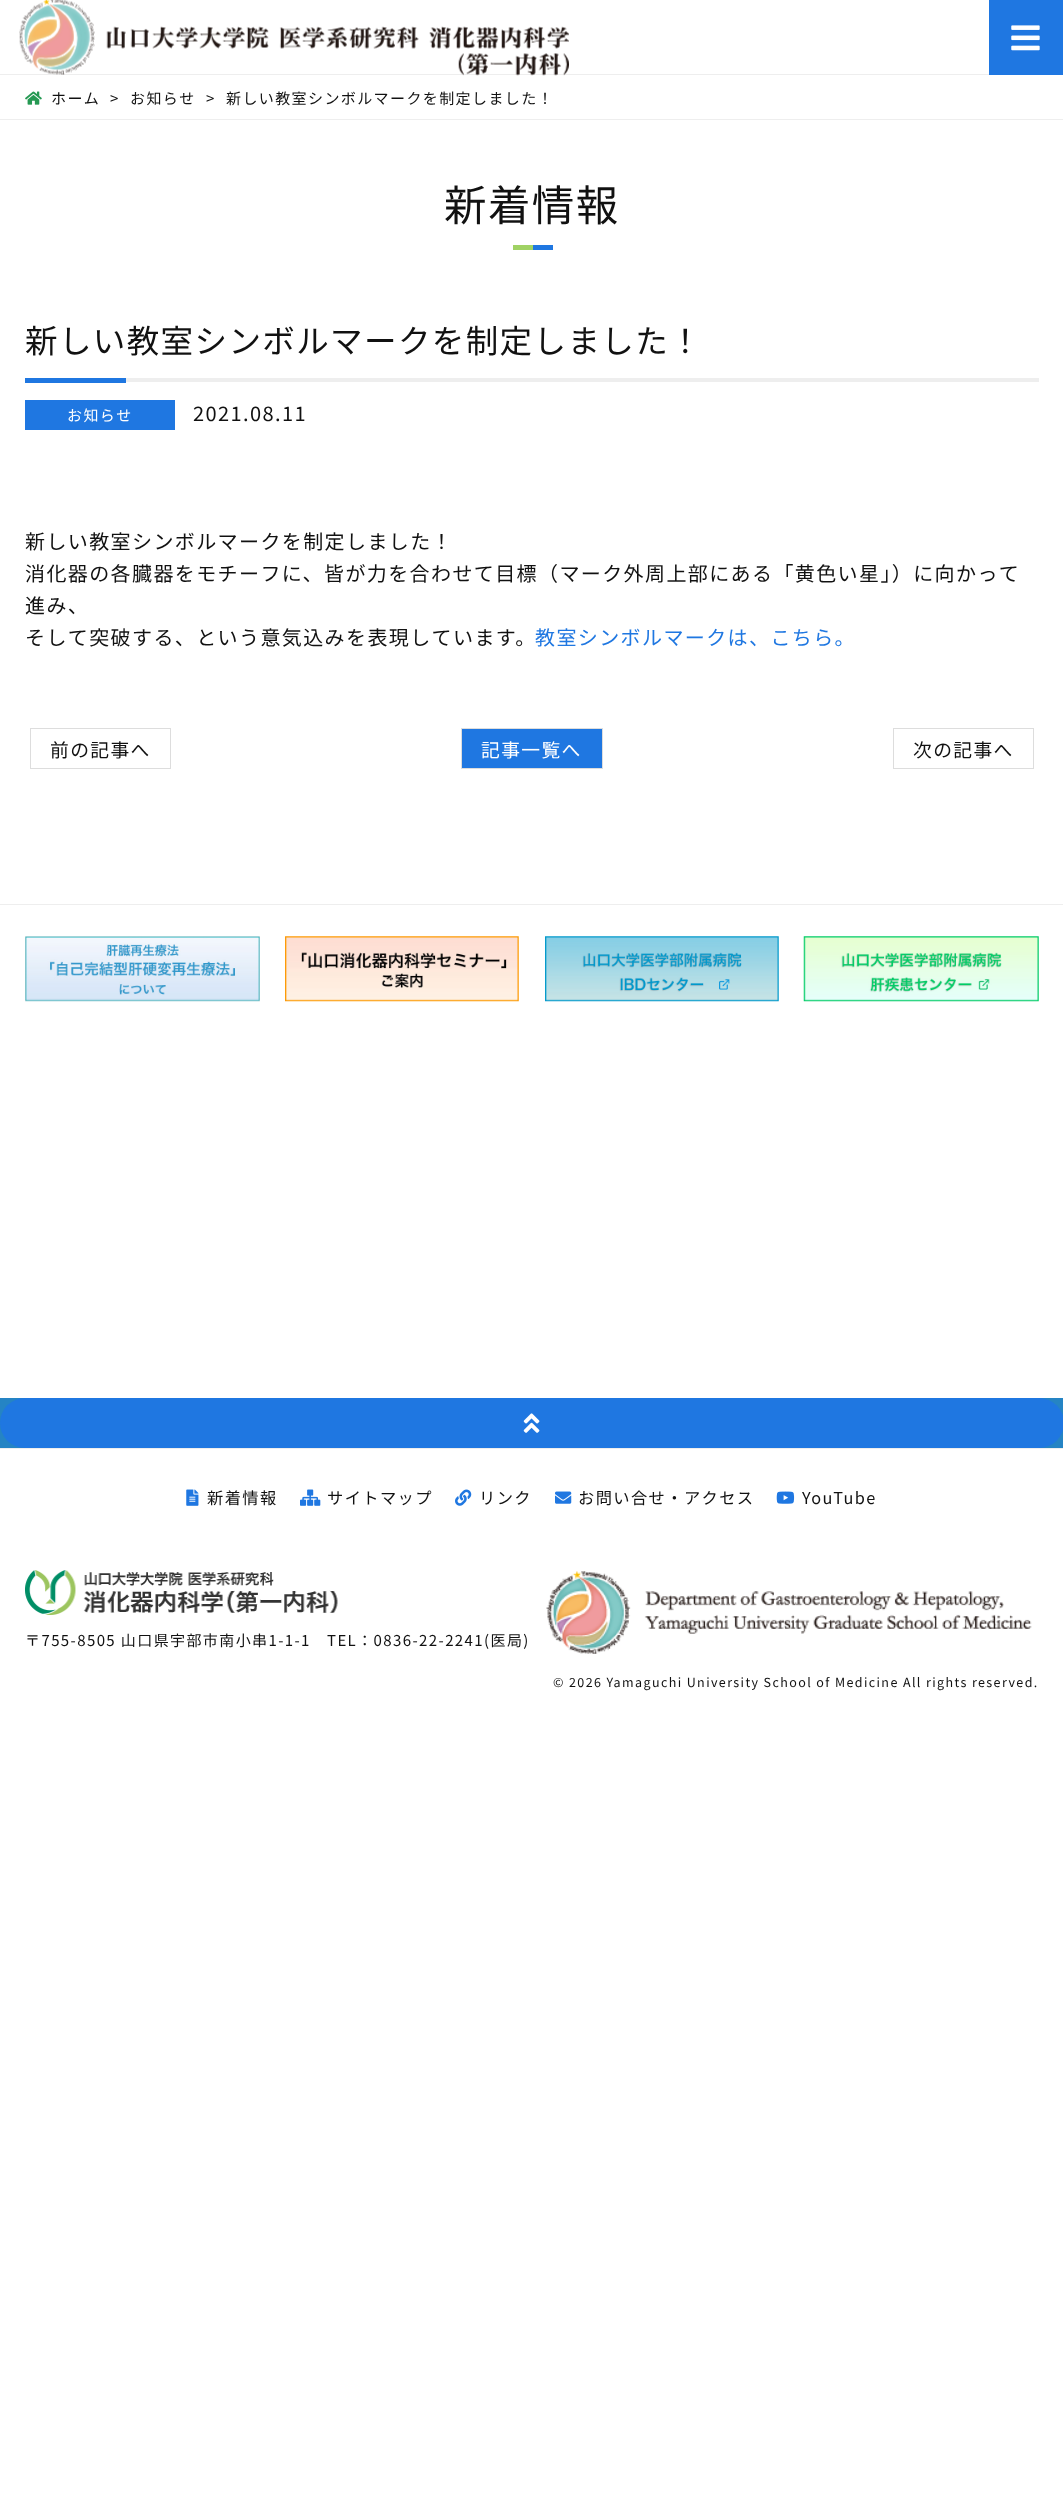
async function draw(canvas) {
  canvas.width = 1063
  canvas.height = 2519
  const ctx = canvas.getContext('2d')
  ctx.miterLimit = 4
  ctx.fontKerning = 'normal'
  async function loadImage(src) {
    const img = new Image()
    img.src = src
    await img.decode()
    return img
  }

  ctx.fillStyle = '#fff'
  ctx.fillRect(0, 0, 1063, 2519)
  ctx.fillStyle = '#eee'
  ctx.fillRect(0, 74, 989, 1)
  ctx.drawImage(await loadImage('image0.png'), 19, 0, 550, 76)
  ctx.fillStyle = '#1f77e1'
  ctx.fillRect(989, 0, 74, 75)
  ctx.drawImage(await loadImage('image1.png'), 1011, 25, 29, 26)
  ctx.fillStyle = '#eee'
  ctx.fillRect(0, 119, 1063, 1)
  ctx.drawImage(await loadImage('image2.png'), 25, 91, 17, 14)
  ctx.letterSpacing = '1.4px'
  ctx.font = '15px Noto Sans JP'
  ctx.fillStyle = '#111'
  ctx.fillText('ホーム', 51, 104)
  ctx.fillText('>', 110, 104)
  ctx.fillText('お知らせ', 130, 104)
  ctx.fillText('>', 206, 104)
  ctx.fillText('新しい教室シンボルマークを制定しました！', 226, 104)
  ctx.font = '42.5px Noto Sans JP'
  ctx.fillText('新着情報', 444, 221)
  ctx.fillStyle = '#a0d264'
  ctx.fillRect(513, 245, 20, 5)
  ctx.fillStyle = '#1f77e1'
  ctx.fillRect(533, 245, 20, 5)
  ctx.fillStyle = '#eee'
  ctx.fillRect(126, 378, 913, 4)
  ctx.font = '32.5px Noto Sans JP'
  ctx.fillStyle = '#111'
  ctx.fillText('新しい教室シンボルマークを制定しました！', 25, 353)
  ctx.fillStyle = '#1f77e1'
  ctx.fillRect(25, 378, 101, 5)
  ctx.fillRect(25, 400, 150, 30)
  ctx.font = '15px Noto Sans JP'
  ctx.fillStyle = '#fff'
  ctx.fillText('お知らせ', 67, 421)
  ctx.font = '20px Noto Sans JP'
  ctx.fillStyle = '#111'
  ctx.fillText('2021.08.11', 193, 421)
  ctx.fillText('新しい教室シンボルマークを制定しました！', 25, 549)
  ctx.fillText('消化器の各臓器をモチーフに、皆が力を合わせて目標（マーク外周上部にある「黄色い星」）に向かって', 25, 581)
  ctx.fillText('進み、', 25, 613)
  ctx.fillText('そして突破する、という意気込みを表現しています。', 25, 645)
  ctx.fillStyle = '#1f77e1'
  ctx.fillText('教室シンボルマークは、こちら。', 535, 645)
  ctx.strokeStyle = '#ddd'
  ctx.strokeRect(30.5, 728.5, 140, 40)
  ctx.font = '18.75px Noto Sans JP'
  ctx.fillStyle = '#111'
  ctx.fillText('前の記事へ', 50, 757)
  ctx.fillStyle = '#1f77e1'
  ctx.beginPath()
  ctx.rect(461.5, 728.5, 141, 40)
  ctx.fill()
  ctx.stroke()
  ctx.fillStyle = '#fff'
  ctx.fillText('記事一覧へ', 481, 757)
  ctx.strokeRect(893.5, 728.5, 140, 40)
  ctx.fillStyle = '#111'
  ctx.fillText('次の記事へ', 913, 757)
  ctx.fillStyle = '#eee'
  ctx.fillRect(0, 904, 1063, 1)
  ctx.drawImage(await loadImage('image3.png'), 25, 936, 235, 66)
  ctx.drawImage(await loadImage('image4.png'), 285, 936, 234, 66)
  ctx.drawImage(await loadImage('image5.png'), 545, 936, 234, 66)
  ctx.drawImage(await loadImage('image6.png'), 803, 936, 236, 66)
  ctx.fillStyle = '#2584c4'
  ctx.fillRect(0, 1398, 1063, 50)
  ctx.fillStyle = '#1f77e1'
  ctx.beginPath()
  ctx.roundRect(0, 1398, 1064, 50, 25)
  ctx.fill()
  ctx.drawImage(await loadImage('image7.png'), 523, 1413, 17, 20)
  ctx.fillStyle = '#eee'
  ctx.fillRect(0, 1448, 1063, 1)
  ctx.drawImage(await loadImage('image8.png'), 186, 1489, 13, 17)
  ctx.font = '16.25px Noto Sans JP'
  ctx.fillStyle = '#111'
  ctx.fillText('新着情報', 207, 1504)
  ctx.drawImage(await loadImage('image9.png'), 300, 1489, 21, 17)
  ctx.fillText('サイトマップ', 327, 1504)
  ctx.drawImage(await loadImage('image10.png'), 455, 1489, 17, 17)
  ctx.fillText('リンク', 479, 1504)
  ctx.drawImage(await loadImage('image11.png'), 555, 1491, 17, 13)
  ctx.fillText('お問い合せ・アクセス', 578, 1504)
  ctx.drawImage(await loadImage('image12.png'), 776, 1491, 19, 13)
  ctx.fillText('YouTube', 802, 1504)
  ctx.drawImage(await loadImage('image13.png'), 25, 1570, 313, 45)
  ctx.font = '15px Noto Sans JP'
  ctx.fillText('〒755-8505 山口県宇部市南小串1-1-1', 25, 1646)
  ctx.fillText('TEL：0836-22-2241(医局)', 327, 1646)
  ctx.drawImage(await loadImage('image14.png'), 546, 1571, 486, 83)
  ctx.font = '12.5px Noto Sans JP'
  ctx.fillText('© 2026 Yamaguchi University School of Medicine All rights reserved.', 553, 1687)
}

draw(document.querySelector('canvas'))
